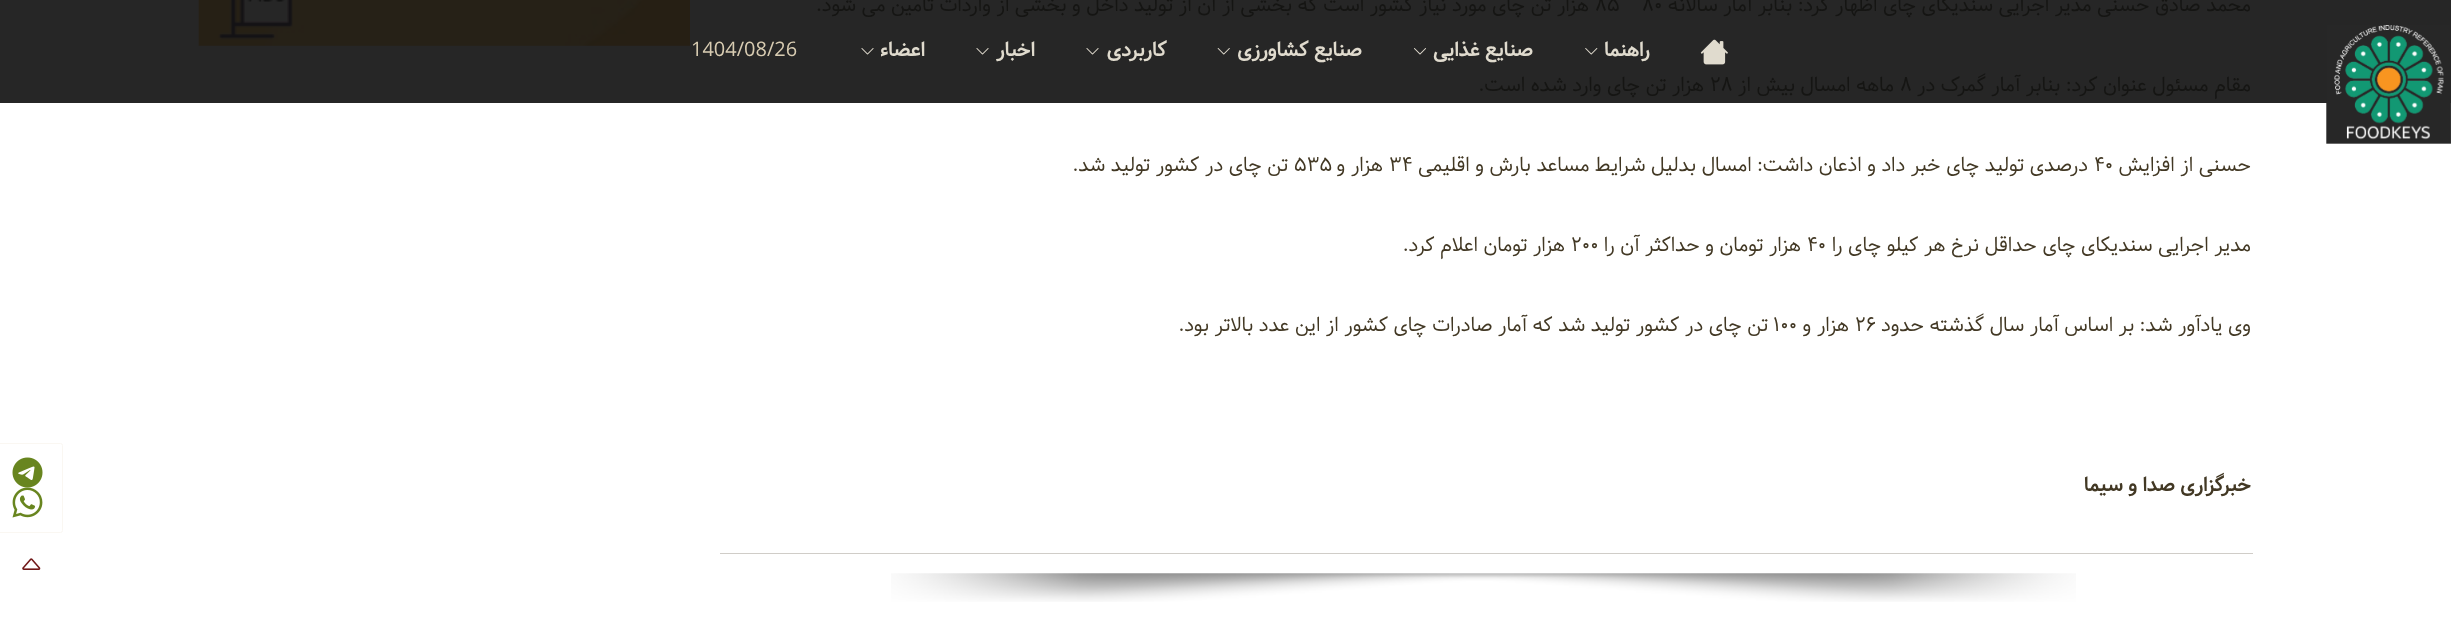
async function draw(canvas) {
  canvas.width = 2451
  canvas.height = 620
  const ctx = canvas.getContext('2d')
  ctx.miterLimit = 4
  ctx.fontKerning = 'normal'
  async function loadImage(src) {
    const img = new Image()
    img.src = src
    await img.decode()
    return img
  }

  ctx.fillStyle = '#fff'
  ctx.fillRect(0, 0, 2451, 620)
  ctx.fillStyle = '#262626'
  ctx.fillRect(0, 0, 2451, 103)
  ctx.direction = 'rtl'
  ctx.font = '20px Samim'
  ctx.fillStyle = '#151513'
  ctx.fillText('محمد صادق حسنی مدیر اجرایی سندیکای چای اظهار کرد: بنابر آمار سالانه', 2251, 11)
  ctx.direction = 'ltr'
  ctx.fillText('۸۰', 1642, 11)
  ctx.fillText('۸۵', 1595, 11)
  ctx.direction = 'rtl'
  ctx.fillText('هزار تن چای مورد نیاز کشور است که بخشی از آن از تولید داخل و بخشی از واردات تامین می شود.', 1589, 11)
  ctx.fillText('مقام مسئول عنوان کرد: بنابر آمار گمرک در', 2251, 91)
  ctx.direction = 'ltr'
  ctx.fillText('۸', 1900, 91)
  ctx.direction = 'rtl'
  ctx.fillText('ماهه امسال بیش از', 1894, 91)
  ctx.direction = 'ltr'
  ctx.fillText('۲۸', 1710, 91)
  ctx.direction = 'rtl'
  ctx.fillText('هزار تن چای وارد شده است.', 1704, 91)
  ctx.fillStyle = '#423824'
  ctx.fillText('حسنی از افزایش', 2251, 171)
  ctx.direction = 'ltr'
  ctx.fillText('۴۰', 2094, 171)
  ctx.direction = 'rtl'
  ctx.fillText('درصدی تولید چای خبر داد و اذعان داشت: امسال بدلیل شرایط مساعد بارش و اقلیمی', 2088, 171)
  ctx.direction = 'ltr'
  ctx.fillText('۳۴', 1389, 171)
  ctx.direction = 'rtl'
  ctx.fillText('هزار و', 1383, 171)
  ctx.direction = 'ltr'
  ctx.fillText('۵۳۵', 1294, 171)
  ctx.direction = 'rtl'
  ctx.fillText('تن چای در کشور تولید شد.', 1288, 171)
  ctx.fillText('مدیر اجرایی سندیکای چای حداقل نرخ هر کیلو چای را', 2251, 251)
  ctx.direction = 'ltr'
  ctx.fillText('۴۰', 1807, 251)
  ctx.direction = 'rtl'
  ctx.fillText('هزار تومان و حداکثر آن را', 1801, 251)
  ctx.direction = 'ltr'
  ctx.fillText('۲۰۰', 1571, 251)
  ctx.direction = 'rtl'
  ctx.fillText('هزار تومان اعلام کرد.', 1565, 251)
  ctx.fillText('وی یادآور شد: بر اساس آمار سال گذشته حدود', 2251, 331)
  ctx.direction = 'ltr'
  ctx.fillText('۲۶', 1855, 331)
  ctx.direction = 'rtl'
  ctx.fillText('هزار و', 1849, 331)
  ctx.direction = 'ltr'
  ctx.fillText('۱۰۰', 1773, 331)
  ctx.direction = 'rtl'
  ctx.fillText('تن چای در کشور تولید شد که آمار صادرات چای کشور از این عدد بالاتر بود.', 1768, 331)
  ctx.font = 'bold 20px Samim'
  ctx.fillText('خبرگزاری صدا و سیما', 2251, 491)
  ctx.fillStyle = '#d0cdc8'
  ctx.fillRect(720, 553, 1533, 1)
  ctx.drawImage(await loadImage('image0.png'), 891, 573, 1185, 29)
  ctx.drawImage(await loadImage('image1.png'), 198, 0, 492, 46)
  ctx.drawImage(await loadImage('image2.png'), 2326, 25, 125, 119)
  ctx.drawImage(await loadImage('image3.png'), 1700, 39, 28, 26)
  ctx.fillStyle = '#e0dbce'
  ctx.fillText('راهنما', 1650, 56)
  ctx.drawImage(await loadImage('image4.png'), 1585, 48, 13, 7)
  ctx.fillText('صنایع غذایی', 1533, 56)
  ctx.drawImage(await loadImage('image5.png'), 1414, 48, 12, 7)
  ctx.fillText('صنایع کشاورزی', 1362, 56)
  ctx.drawImage(await loadImage('image6.png'), 1217, 48, 13, 7)
  ctx.fillText('کاربردی', 1167, 56)
  ctx.drawImage(await loadImage('image7.png'), 1086, 48, 13, 7)
  ctx.fillText('اخبار', 1035, 56)
  ctx.drawImage(await loadImage('image7.png'), 976, 48, 13, 7)
  ctx.fillText('اعضاء', 925, 56)
  ctx.drawImage(await loadImage('image7.png'), 861, 48, 13, 7)
  ctx.direction = 'ltr'
  ctx.font = '20px Samim'
  ctx.fillStyle = '#d8ccb2'
  ctx.fillText('1404/08/26', 691, 56)
  ctx.beginPath()
  ctx.roundRect(-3.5, 443.5, 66, 89, 2)
  ctx.strokeStyle = '#faf7f2'
  ctx.stroke()
  ctx.drawImage(await loadImage('image8.png'), 12, 457, 31, 31)
  ctx.drawImage(await loadImage('image9.png'), 12, 487, 31, 31)
  ctx.drawImage(await loadImage('image10.png'), 22, 558, 19, 12)
}

draw(document.querySelector('canvas'))
